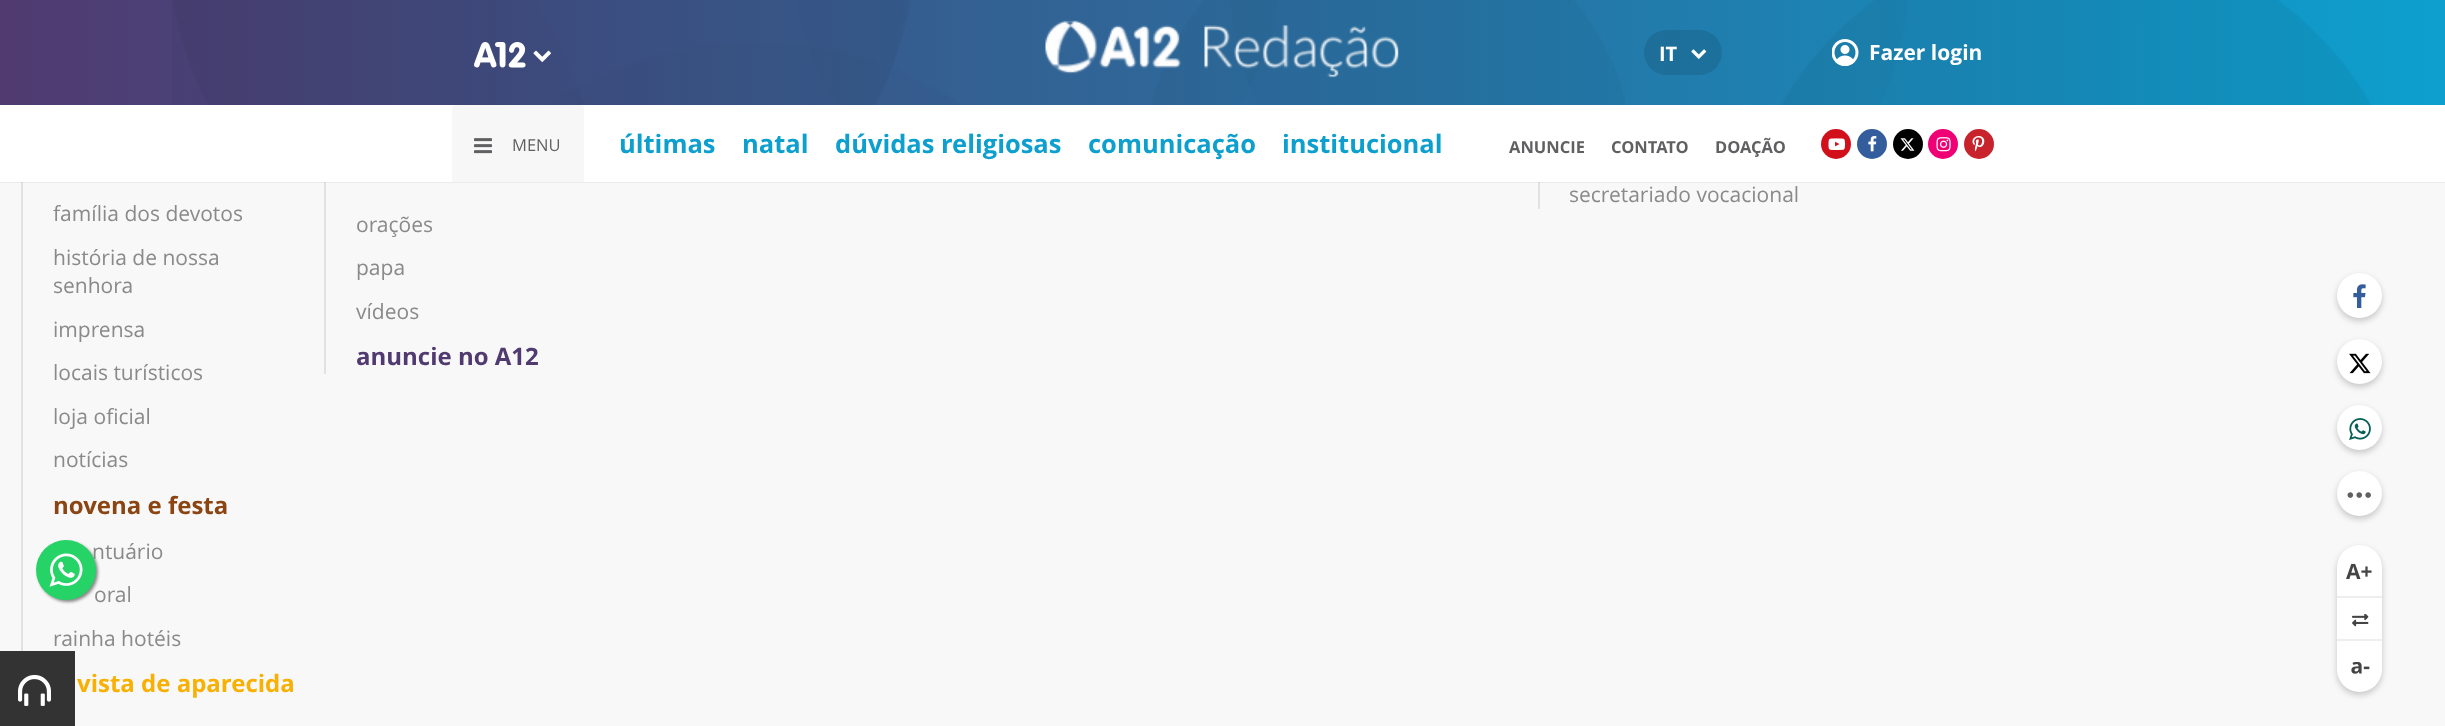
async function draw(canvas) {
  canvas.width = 2445
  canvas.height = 726
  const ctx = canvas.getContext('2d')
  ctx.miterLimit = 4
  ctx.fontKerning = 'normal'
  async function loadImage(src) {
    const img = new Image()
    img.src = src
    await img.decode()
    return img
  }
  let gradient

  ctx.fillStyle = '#f8f8f8'
  ctx.fillRect(0, 0, 2445, 726)
  gradient = ctx.createLinearGradient(0, 53, 2445, 52)
  gradient.addColorStop(0, '#503a70')
  gradient.addColorStop(1, '#0d9fce')
  ctx.fillStyle = gradient
  ctx.fillRect(0, 0, 2445, 105)
  ctx.drawImage(await loadImage('image0.png'), 172, 0, 2199, 105)
  ctx.drawImage(await loadImage('image1.png'), 474, 42, 52, 26)
  ctx.drawImage(await loadImage('image2.png'), 533, 50, 18, 12)
  ctx.drawImage(await loadImage('image3.png'), 1045, 20, 354, 58)
  ctx.fillStyle = '#0000001a'
  ctx.beginPath()
  ctx.roundRect(1644, 30, 78, 45, 22.5)
  ctx.fill()
  ctx.font = 'bold 20px Open Sans'
  ctx.fillStyle = '#fff'
  ctx.fillText('IT', 1659, 61)
  ctx.drawImage(await loadImage('image4.png'), 1691, 49, 16, 10)
  ctx.drawImage(await loadImage('image5.png'), 1832, 39, 27, 27)
  ctx.font = 'bold 21px Open Sans'
  ctx.fillText('Fazer login', 1869, 60)
  ctx.fillStyle = '#e2e2e2'
  ctx.fillRect(1538, 182, 2, 27)
  ctx.fillRect(21, 182, 2, 469)
  ctx.fillRect(324, 182, 2, 192)
  ctx.fillStyle = '#0000000d'
  ctx.fillRect(0, 182, 2445, 1)
  ctx.fillStyle = '#fff'
  ctx.fillRect(0, 105, 2445, 77)
  ctx.fillStyle = '#f7f7f7'
  ctx.beginPath()
  ctx.roundRect(452, 105, 132, 77, [3, 3, 0, 0])
  ctx.fill()
  ctx.drawImage(await loadImage('image6.png'), 474, 138, 18, 16)
  ctx.font = '16.5px Open Sans'
  ctx.fillStyle = '#606062'
  ctx.fillText('MENU', 512, 151)
  ctx.font = 'bold 25.5px Open Sans'
  ctx.fillStyle = '#0d9fce'
  ctx.fillText('últimas', 619, 153)
  ctx.fillText('natal', 742, 153)
  ctx.fillText('dúvidas religiosas', 835, 153)
  ctx.fillText('comunicação', 1088, 153)
  ctx.fillText('institucional', 1282, 153)
  ctx.font = 'bold 16.5px Open Sans'
  ctx.fillStyle = '#606062'
  ctx.fillText('ANUNCIE', 1509, 153)
  ctx.fillText('CONTATO', 1611, 153)
  ctx.fillText('DOAÇÃO', 1715, 153)
  ctx.fillStyle = '#d1101c'
  ctx.beginPath()
  ctx.arc(1836, 144, 15, 0, 2 * Math.PI)
  ctx.fill()
  ctx.drawImage(await loadImage('image7.png'), 1828, 138, 17, 12)
  ctx.fillStyle = '#335d9c'
  ctx.beginPath()
  ctx.arc(1872, 144, 15, 0, 2 * Math.PI)
  ctx.fill()
  ctx.drawImage(await loadImage('image8.png'), 1868, 136, 9, 16)
  ctx.fillStyle = '#000'
  ctx.beginPath()
  ctx.arc(1908, 144, 15, 0, 2 * Math.PI)
  ctx.fill()
  ctx.drawImage(await loadImage('image9.png'), 1900, 138, 15, 13)
  ctx.fillStyle = '#f00075'
  ctx.beginPath()
  ctx.arc(1943, 144, 15, 0, 2 * Math.PI)
  ctx.fill()
  ctx.drawImage(await loadImage('image10.png'), 1936, 137, 15, 15)
  ctx.fillStyle = '#c8232c'
  ctx.beginPath()
  ctx.arc(1979, 144, 15, 0, 2 * Math.PI)
  ctx.fill()
  ctx.drawImage(await loadImage('image11.png'), 1972, 136, 13, 16)
  ctx.font = '21px Open Sans'
  ctx.fillStyle = '#8a8a8a'
  ctx.fillText('secretariado vocacional', 1569, 202)
  ctx.fillText('família dos devotos', 53, 221)
  ctx.fillText('história de nossa', 53, 265)
  ctx.fillText('senhora', 53, 293)
  ctx.fillText('imprensa', 53, 337)
  ctx.fillText('locais turísticos', 53, 380)
  ctx.fillText('loja oficial', 53, 424)
  ctx.fillText('notícias', 53, 467)
  ctx.font = 'bold 24px Open Sans'
  ctx.fillStyle = '#8b4513'
  ctx.fillText('novena e festa', 53, 514)
  ctx.font = '21px Open Sans'
  ctx.fillStyle = '#8a8a8a'
  ctx.fillText('ntuário', 92, 559)
  ctx.fillText('oral', 94, 602)
  ctx.fillText('rainha hotéis', 53, 646)
  ctx.font = 'bold 24px Open Sans'
  ctx.fillStyle = '#f8b003'
  ctx.fillText('vista de aparecida', 77, 692)
  ctx.font = '21px Open Sans'
  ctx.fillStyle = '#8a8a8a'
  ctx.fillText('orações', 356, 232)
  ctx.fillText('papa', 356, 275)
  ctx.fillText('vídeos', 356, 319)
  ctx.font = 'bold 24px Open Sans'
  ctx.fillStyle = '#503a70'
  ctx.fillText('anuncie no A12', 356, 365)
  ctx.fillStyle = '#00000033'
  ctx.filter = 'blur(3px)'
  ctx.beginPath()
  ctx.roundRect(2337, 276, 45, 45, 22.5)
  ctx.fill()
  ctx.filter = 'none'
  ctx.fillStyle = '#fff'
  ctx.beginPath()
  ctx.arc(2359.5, 295.5, 22.5, 0, 2 * Math.PI)
  ctx.fill()
  ctx.drawImage(await loadImage('image12.png'), 2353, 284, 13, 24)
  ctx.fillStyle = '#00000033'
  ctx.filter = 'blur(3px)'
  ctx.beginPath()
  ctx.roundRect(2337, 342, 45, 45, 22.5)
  ctx.fill()
  ctx.filter = 'none'
  ctx.fillStyle = '#fff'
  ctx.beginPath()
  ctx.arc(2359.5, 361.5, 22.5, 0, 2 * Math.PI)
  ctx.fill()
  ctx.drawImage(await loadImage('image13.png'), 2349, 353, 22, 21)
  ctx.fillStyle = '#00000033'
  ctx.filter = 'blur(3px)'
  ctx.beginPath()
  ctx.roundRect(2337, 408, 45, 45, 22.5)
  ctx.fill()
  ctx.filter = 'none'
  ctx.fillStyle = '#fff'
  ctx.beginPath()
  ctx.arc(2359.5, 427.5, 22.5, 0, 2 * Math.PI)
  ctx.fill()
  ctx.drawImage(await loadImage('image14.png'), 2349, 418, 22, 22)
  ctx.fillStyle = '#00000033'
  ctx.filter = 'blur(3px)'
  ctx.beginPath()
  ctx.roundRect(2337, 474, 45, 45, 22.5)
  ctx.fill()
  ctx.filter = 'none'
  ctx.fillStyle = '#fff'
  ctx.beginPath()
  ctx.arc(2359.5, 493.5, 22.5, 0, 2 * Math.PI)
  ctx.fill()
  ctx.drawImage(await loadImage('image15.png'), 2347, 492, 24, 6)
  ctx.fillStyle = '#888'
  ctx.filter = 'blur(1.5px)'
  ctx.beginPath()
  ctx.roundRect(38, 542, 60, 60, 30)
  ctx.fill()
  ctx.filter = 'none'
  ctx.fillStyle = '#25d366'
  ctx.beginPath()
  ctx.arc(66, 570, 30, 0, 2 * Math.PI)
  ctx.fill()
  ctx.drawImage(await loadImage('image16.png'), 49, 553, 34, 34)
  ctx.fillStyle = '#00000033'
  ctx.filter = 'blur(3px)'
  ctx.beginPath()
  ctx.roundRect(2337, 548, 45, 147, 22.5)
  ctx.fill()
  ctx.filter = 'none'
  ctx.fillStyle = '#fff'
  ctx.beginPath()
  ctx.roundRect(2337, 545, 45, 147, 22.5)
  ctx.fill()
  ctx.drawImage(await loadImage('image17.png'), 2346, 563, 26, 16)
  ctx.fillStyle = '#eee'
  ctx.fillRect(2337, 596, 45, 2)
  ctx.fillRect(2337, 639, 45, 2)
  ctx.drawImage(await loadImage('image18.png'), 2352, 614, 17, 13)
  ctx.drawImage(await loadImage('image19.png'), 2351, 662, 19, 12)
  ctx.fillStyle = '#333'
  ctx.fillRect(0, 651, 75, 75)
  ctx.drawImage(await loadImage('image20.png'), 18, 675, 33, 31)
}

draw(document.querySelector('canvas'))
